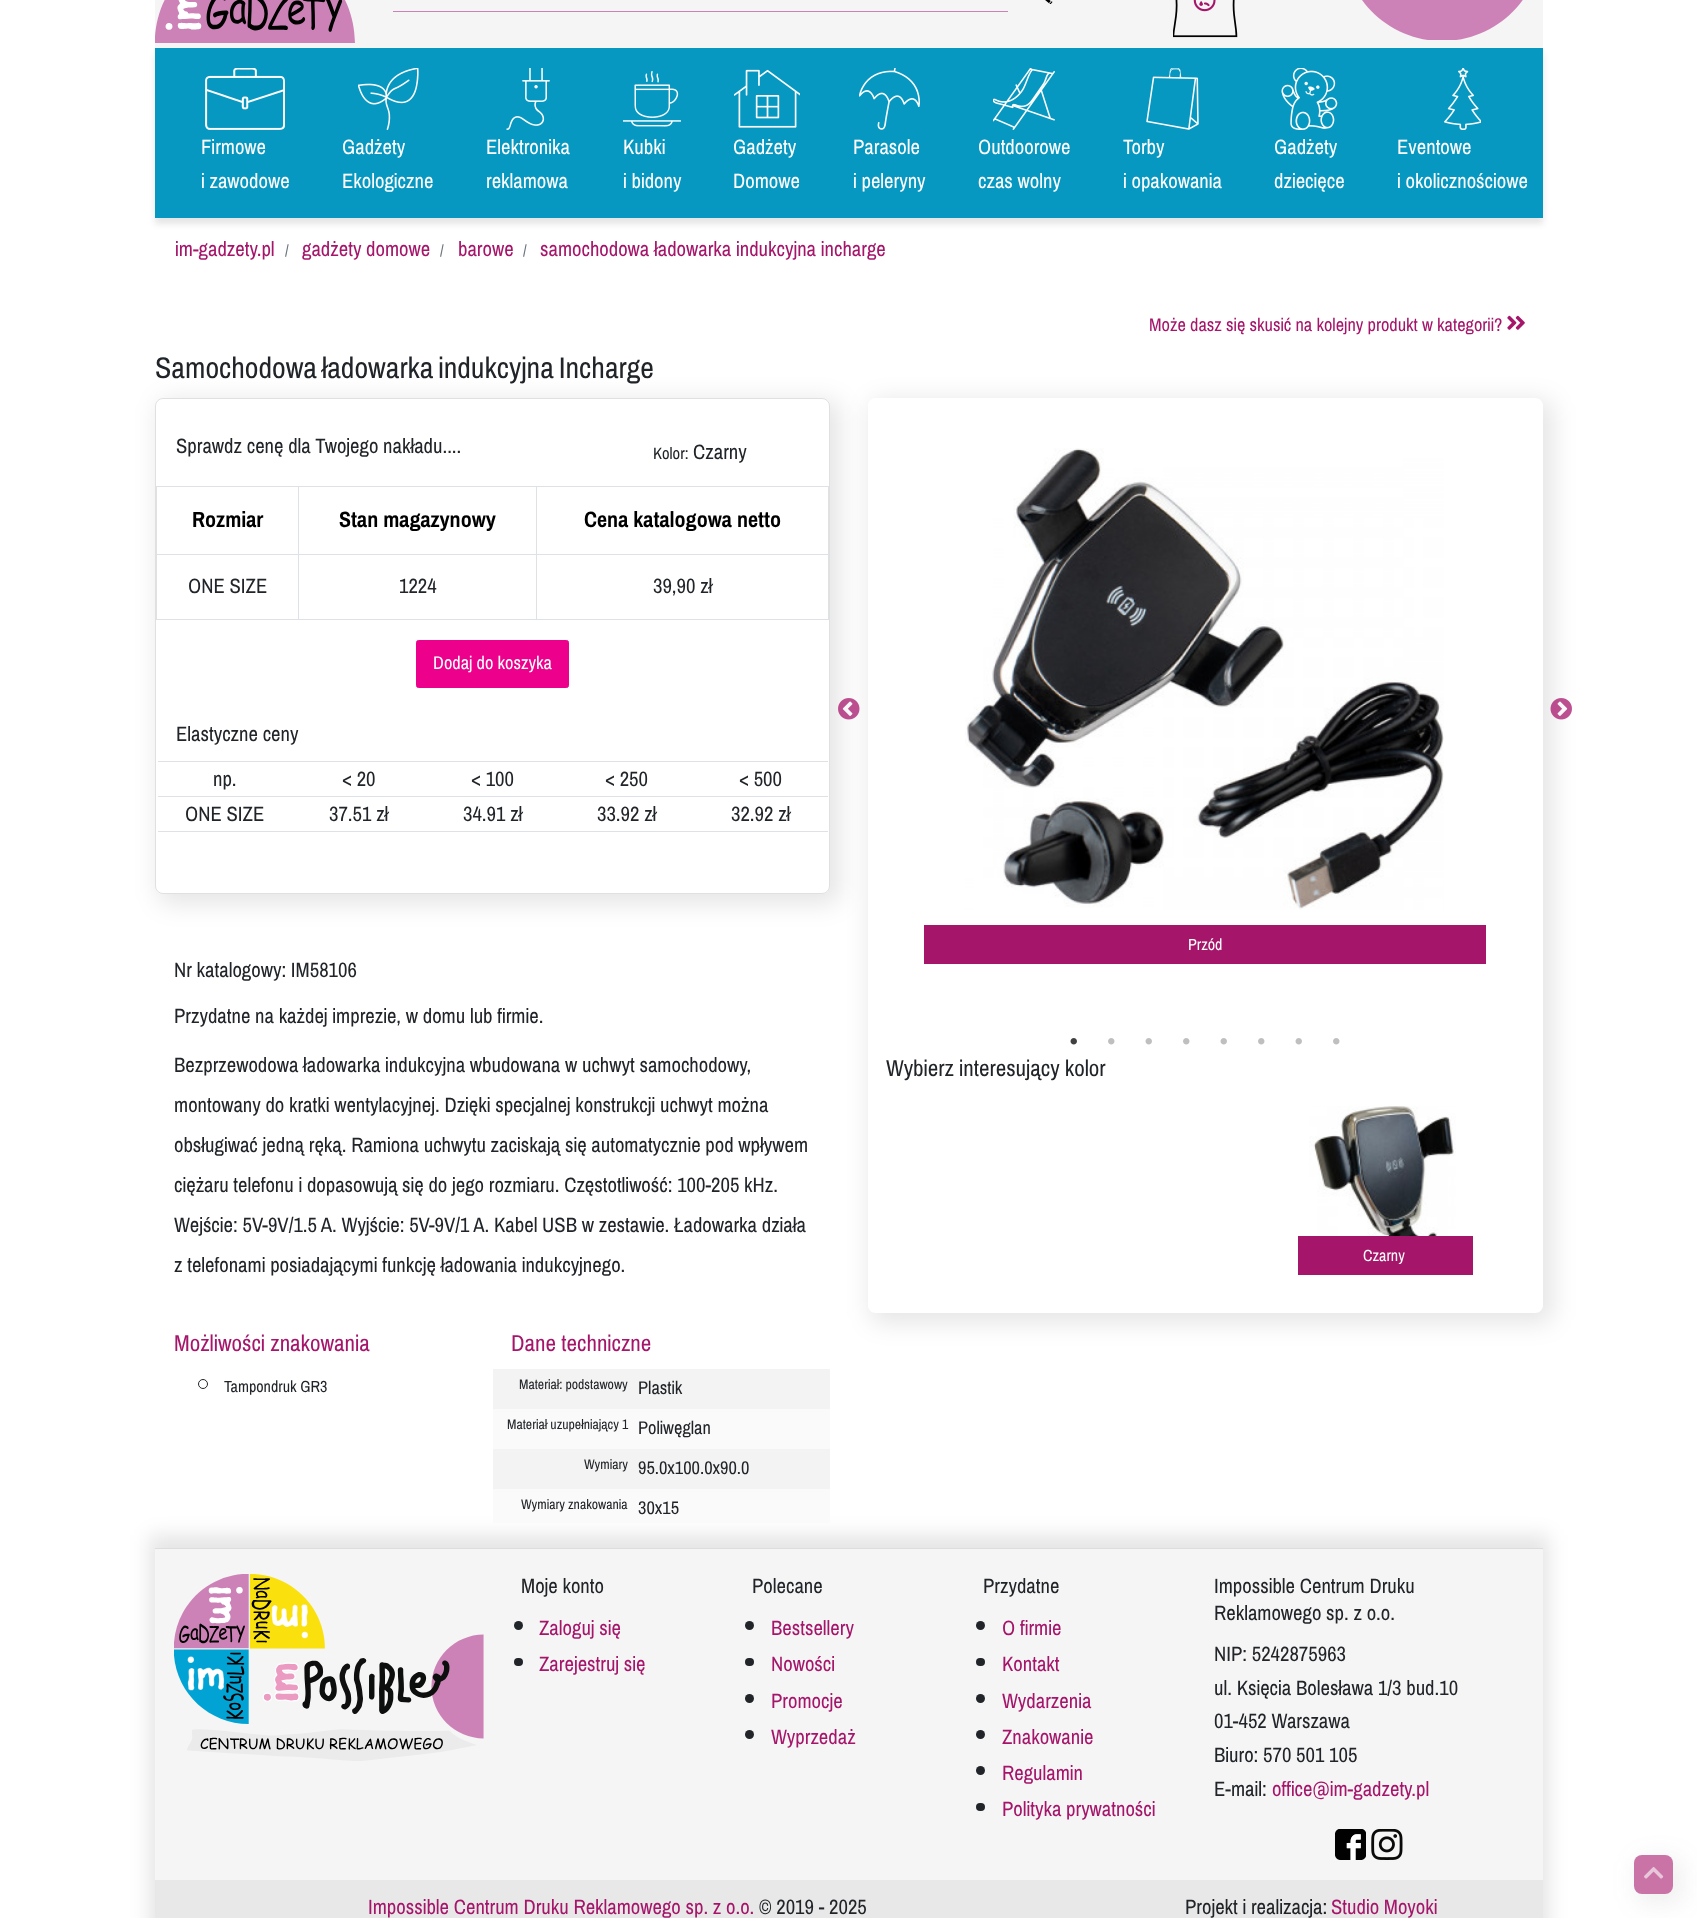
async function draw(canvas) {
  canvas.width = 1697
  canvas.height = 1918
  const ctx = canvas.getContext('2d')
  ctx.miterLimit = 4
  ctx.fontKerning = 'normal'
  async function loadImage(src) {
    const img = new Image()
    img.src = src
    await img.decode()
    return img
  }

  ctx.fillStyle = '#fff'
  ctx.fillRect(0, 0, 1697, 1918)
  ctx.fillStyle = '#f5f5f5'
  ctx.fillRect(155, 0, 1388, 48)
  ctx.drawImage(await loadImage('image0.png'), 155, 0, 200, 43)
  ctx.drawImage(await loadImage('image1.png'), 1045, 0, 8, 4)
  ctx.fillStyle = '#cd82b7'
  ctx.fillRect(393, 11, 615, 1)
  ctx.drawImage(await loadImage('image2.png'), 1173, 0, 65, 38)
  ctx.drawImage(await loadImage('image3.png'), 1193, 0, 23, 12)
  ctx.save()
  ctx.beginPath()
  ctx.rect(1343, 0, 200, 40)
  ctx.clip()
  ctx.beginPath()
  ctx.moveTo(1542, -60)
  ctx.bezierCurveTo(1542, -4, 1498, 41, 1442, 41)
  ctx.bezierCurveTo(1387, 41, 1343, -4, 1342, -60)
  ctx.closePath()
  ctx.fill()
  ctx.restore()
  ctx.fillStyle = '#0000001a'
  ctx.filter = 'blur(3px)'
  ctx.beginPath()
  ctx.rect(155, 54, 1388, 170)
  ctx.fill()
  ctx.filter = 'none'
  ctx.fillStyle = '#0798c1'
  ctx.fillRect(155, 48, 1388, 170)
  ctx.drawImage(await loadImage('image4.png'), 205, 68, 80, 62)
  ctx.font = '22.5px Pragati Narrow'
  ctx.fillStyle = '#fff'
  ctx.fillText('Firmowe', 201, 154)
  ctx.fillText('i zawodowe', 201, 188)
  ctx.drawImage(await loadImage('image5.png'), 358, 68, 61, 62)
  ctx.fillText('Gadżety', 342, 154)
  ctx.fillText('Ekologiczne', 342, 188)
  ctx.drawImage(await loadImage('image6.png'), 506, 68, 44, 62)
  ctx.fillText('Elektronika', 486, 154)
  ctx.fillText('reklamowa', 486, 188)
  ctx.drawImage(await loadImage('image7.png'), 623, 71, 58, 56)
  ctx.fillText('Kubki', 623, 154)
  ctx.fillText('i bidony', 623, 188)
  ctx.drawImage(await loadImage('image8.png'), 734, 69, 66, 59)
  ctx.fillText('Gadżety', 733, 154)
  ctx.fillText('Domowe', 733, 188)
  ctx.drawImage(await loadImage('image9.png'), 859, 68, 61, 62)
  ctx.fillText('Parasole', 853, 154)
  ctx.fillText('i peleryny', 853, 188)
  ctx.drawImage(await loadImage('image10.png'), 993, 68, 62, 62)
  ctx.fillText('Outdoorowe', 978, 154)
  ctx.fillText('czas wolny', 978, 188)
  ctx.drawImage(await loadImage('image11.png'), 1146, 68, 53, 62)
  ctx.fillText('Torby', 1123, 154)
  ctx.fillText('i opakowania', 1123, 188)
  ctx.drawImage(await loadImage('image12.png'), 1281, 68, 57, 62)
  ctx.fillText('Gadżety', 1274, 154)
  ctx.fillText('dziecięce', 1274, 188)
  ctx.drawImage(await loadImage('image13.png'), 1444, 68, 37, 62)
  ctx.fillText('Eventowe', 1397, 154)
  ctx.fillText('i okolicznościowe', 1397, 188)
  ctx.fillStyle = '#a5166b'
  ctx.fillText('im-gadzety.pl', 175, 256)
  ctx.font = '17.5px Pragati Narrow'
  ctx.fillStyle = '#6c757d'
  ctx.fillText('/', 285, 256)
  ctx.font = '22.5px Pragati Narrow'
  ctx.fillStyle = '#a5166b'
  ctx.fillText('gadżety domowe', 302, 256)
  ctx.font = '17.5px Pragati Narrow'
  ctx.fillStyle = '#6c757d'
  ctx.fillText('/', 440, 256)
  ctx.font = '22.5px Pragati Narrow'
  ctx.fillStyle = '#a5166b'
  ctx.fillText('barowe', 458, 256)
  ctx.font = '17.5px Pragati Narrow'
  ctx.fillStyle = '#6c757d'
  ctx.fillText('/', 523, 256)
  ctx.font = '22.5px Pragati Narrow'
  ctx.fillStyle = '#a5166b'
  ctx.fillText('samochodowa ładowarka indukcyjna incharge', 540, 256)
  ctx.font = '20px Pragati Narrow'
  ctx.fillText('Może dasz się skusić na kolejny produkt w kategorii?', 1149, 331)
  ctx.drawImage(await loadImage('image14.png'), 1507, 315, 18, 15)
  ctx.wordSpacing = '-2px'
  ctx.font = '32.5px Pragati Narrow'
  ctx.fillStyle = '#212529'
  ctx.fillText('Samochodowa ładowarka indukcyjna Incharge', 155, 378)
  ctx.fillStyle = '#0000001a'
  ctx.filter = 'blur(12.5px)'
  ctx.beginPath()
  ctx.roundRect(158, 400, 682, 504, 11)
  ctx.fill()
  ctx.filter = 'none'
  ctx.fillStyle = '#fff'
  ctx.beginPath()
  ctx.roundRect(155, 398, 675, 496, 8)
  ctx.fill()
  ctx.beginPath()
  ctx.roundRect(155.5, 398.5, 674, 495, 7.5)
  ctx.strokeStyle = '#0000001f'
  ctx.stroke()
  ctx.wordSpacing = '0px'
  ctx.font = '22.5px Pragati Narrow'
  ctx.fillStyle = '#212529'
  ctx.fillText('Sprawdz cenę dla Twojego nakładu....', 176, 453)
  ctx.font = '18px Pragati Narrow'
  ctx.fillText('Kolor:', 653, 459)
  ctx.font = '22.5px Pragati Narrow'
  ctx.fillText('Czarny', 693, 459)
  ctx.fillStyle = '#dee2e6'
  ctx.fillRect(156, 486, 673, 1)
  ctx.fillRect(828, 486, 1, 134)
  ctx.fillRect(156, 619, 673, 1)
  ctx.fillRect(156, 486, 1, 134)
  ctx.font = 'bold 24px Pragati Narrow'
  ctx.fillStyle = '#000'
  ctx.fillText('Rozmiar', 192, 527)
  ctx.fillStyle = '#dee2e6'
  ctx.fillRect(536, 554, 293, 1)
  ctx.fillRect(536, 554, 1, 66)
  ctx.fillRect(298, 554, 240, 1)
  ctx.fillRect(298, 554, 1, 66)
  ctx.fillRect(156, 554, 143, 1)
  ctx.fillRect(298, 486, 1, 69)
  ctx.fillStyle = '#000'
  ctx.fillText('Stan magazynowy', 339, 527)
  ctx.fillStyle = '#dee2e6'
  ctx.fillRect(536, 486, 1, 69)
  ctx.fillStyle = '#000'
  ctx.fillText('Cena katalogowa netto', 584, 527)
  ctx.font = '22.5px Pragati Narrow'
  ctx.fillStyle = '#212529'
  ctx.fillText('ONE SIZE', 188, 593)
  ctx.fillText('1224', 399, 593)
  ctx.fillText('39,90 zł', 653, 593)
  ctx.fillStyle = '#ec008c'
  ctx.beginPath()
  ctx.roundRect(416.5, 640.5, 152, 47, 2)
  ctx.fill()
  ctx.strokeStyle = '#ec008c'
  ctx.stroke()
  ctx.font = '20px Pragati Narrow'
  ctx.fillStyle = '#fff'
  ctx.fillText('Dodaj do koszyka', 433, 669)
  ctx.font = '22.5px Pragati Narrow'
  ctx.fillStyle = '#212529'
  ctx.fillText('Elastyczne ceny', 176, 741)
  ctx.fillStyle = '#dee2e6'
  ctx.fillRect(158, 761, 670, 1)
  ctx.fillRect(158, 796, 670, 1)
  ctx.fillStyle = '#212529'
  ctx.fillText('np.', 213, 786)
  ctx.fillText('< 20', 342, 786)
  ctx.fillText('< 100', 471, 786)
  ctx.fillText('< 250', 605, 786)
  ctx.fillText('< 500', 739, 786)
  ctx.fillStyle = '#dee2e6'
  ctx.fillRect(158, 831, 670, 1)
  ctx.fillStyle = '#212529'
  ctx.fillText('ONE SIZE', 185, 821)
  ctx.fillText('37.51 zł', 329, 821)
  ctx.fillText('34.91 zł', 463, 821)
  ctx.fillText('33.92 zł', 597, 821)
  ctx.fillText('32.92 zł', 731, 821)
  ctx.fillText('Nr katalogowy: IM58106', 174, 977)
  ctx.fillText('Przydatne na każdej imprezie, w domu lub firmie.', 174, 1023)
  ctx.fillText('Bezprzewodowa ładowarka indukcyjna wbudowana w uchwyt samochodowy,', 174, 1072)
  ctx.fillText('montowany do kratki wentylacyjnej. Dzięki specjalnej konstrukcji uchwyt można', 174, 1112)
  ctx.fillText('obsługiwać jedną ręką. Ramiona uchwytu zaciskają się automatycznie pod wpływem', 174, 1152)
  ctx.fillText('ciężaru telefonu i dopasowują się do jego rozmiaru. Częstotliwość: 100-205 kHz.', 174, 1192)
  ctx.fillText('Wejście: 5V-9V/1.5 A. Wyjście: 5V-9V/1 A. Kabel USB w zestawie. Ładowarka działa', 174, 1232)
  ctx.fillText('z telefonami posiadającymi funkcję ładowania indukcyjnego.', 174, 1272)
  ctx.font = '25px Pragati Narrow'
  ctx.fillStyle = '#a5166b'
  ctx.fillText('Możliwości znakowania', 174, 1351)
  ctx.beginPath()
  ctx.arc(203, 1384, 4.5, 0, 2 * Math.PI)
  ctx.strokeStyle = '#212529'
  ctx.stroke()
  ctx.font = '17.5px Pragati Narrow'
  ctx.fillStyle = '#212529'
  ctx.fillText('Tampondruk GR3', 224, 1392)
  ctx.font = '25px Pragati Narrow'
  ctx.fillStyle = '#a5166b'
  ctx.fillText('Dane techniczne', 511, 1351)
  ctx.fillStyle = '#f3f3f3'
  ctx.fillRect(493, 1369, 337, 40)
  ctx.font = '15px Pragati Narrow'
  ctx.fillStyle = '#212529'
  ctx.fillText('Materiał: podstawowy', 519, 1389)
  ctx.font = '20px Pragati Narrow'
  ctx.fillText('Plastik', 638, 1394)
  ctx.fillStyle = '#fafafa'
  ctx.fillRect(493, 1409, 337, 40)
  ctx.font = '15px Pragati Narrow'
  ctx.fillStyle = '#212529'
  ctx.fillText('Materiał uzupełniający 1', 507, 1429)
  ctx.font = '20px Pragati Narrow'
  ctx.fillText('Poliwęglan', 638, 1434)
  ctx.fillStyle = '#f3f3f3'
  ctx.fillRect(493, 1449, 337, 40)
  ctx.font = '15px Pragati Narrow'
  ctx.fillStyle = '#212529'
  ctx.fillText('Wymiary', 584, 1469)
  ctx.font = '20px Pragati Narrow'
  ctx.fillText('95.0x100.0x90.0', 638, 1474)
  ctx.fillStyle = '#0000001a'
  ctx.filter = 'blur(9.5px)'
  ctx.beginPath()
  ctx.rect(149, 1535, 1400, 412)
  ctx.fill()
  ctx.filter = 'none'
  ctx.fillStyle = '#fafafa'
  ctx.fillRect(493, 1489, 337, 34)
  ctx.font = '15px Pragati Narrow'
  ctx.fillStyle = '#212529'
  ctx.fillText('Wymiary znakowania', 521, 1509)
  ctx.font = '20px Pragati Narrow'
  ctx.fillText('30x15', 638, 1514)
  ctx.save()
  ctx.beginPath()
  ctx.moveTo(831, 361)
  ctx.lineTo(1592, 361)
  ctx.lineTo(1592, 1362)
  ctx.lineTo(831, 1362)
  ctx.closePath()
  ctx.moveTo(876, 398)
  ctx.lineTo(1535, 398)
  ctx.bezierCurveTo(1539.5, 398, 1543, 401.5, 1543, 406)
  ctx.lineTo(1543, 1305)
  ctx.bezierCurveTo(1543, 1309.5, 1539.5, 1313, 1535, 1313)
  ctx.lineTo(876, 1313)
  ctx.bezierCurveTo(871.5, 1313, 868, 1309.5, 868, 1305)
  ctx.lineTo(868, 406)
  ctx.bezierCurveTo(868, 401.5, 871.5, 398, 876, 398)
  ctx.closePath()
  ctx.clip('evenodd')
  ctx.fillStyle = '#0000001a'
  ctx.filter = 'blur(12.5px)'
  ctx.beginPath()
  ctx.roundRect(870, 400, 683, 923, 11)
  ctx.fill()
  ctx.filter = 'none'
  ctx.restore()
  ctx.drawImage(await loadImage('image15.png'), 838, 698, 22, 22)
  ctx.drawImage(await loadImage('image16.png'), 1550, 698, 22, 22)
  ctx.drawImage(await loadImage('image17.png'), 965, 448, 479, 462)
  ctx.fillStyle = '#a5166b'
  ctx.fillRect(924, 925, 562, 39)
  ctx.font = '17.5px Pragati Narrow'
  ctx.fillStyle = '#fff'
  ctx.fillText('Przód', 1188, 950)
  ctx.drawImage(await loadImage('image18.png'), 1070, 1038, 7, 7)
  ctx.drawImage(await loadImage('image19.png'), 1108, 1038, 7, 7)
  ctx.drawImage(await loadImage('image20.png'), 1145, 1038, 7, 7)
  ctx.drawImage(await loadImage('image19.png'), 1183, 1038, 7, 7)
  ctx.drawImage(await loadImage('image20.png'), 1220, 1038, 7, 7)
  ctx.drawImage(await loadImage('image19.png'), 1258, 1038, 7, 7)
  ctx.drawImage(await loadImage('image20.png'), 1295, 1038, 7, 7)
  ctx.drawImage(await loadImage('image19.png'), 1333, 1038, 7, 7)
  ctx.font = '25px Pragati Narrow'
  ctx.fillStyle = '#212529'
  ctx.fillText('Wybierz interesujący kolor', 886, 1076)
  ctx.drawImage(await loadImage('image21.png'), 1309, 1106, 147, 130)
  ctx.fillStyle = '#a5166b'
  ctx.fillRect(1298, 1236, 175, 39)
  ctx.font = '17.5px Pragati Narrow'
  ctx.fillStyle = '#fff'
  ctx.fillText('Czarny', 1363, 1261)
  ctx.fillStyle = '#f5f5f5'
  ctx.fillRect(155, 1549, 1388, 331)
  ctx.fillStyle = '#ddd'
  ctx.fillRect(155, 1548, 1388, 1)
  ctx.drawImage(await loadImage('image22.png'), 174, 1574, 310, 187)
  ctx.font = '22.5px Pragati Narrow'
  ctx.fillStyle = '#212529'
  ctx.fillText('Moje konto', 521, 1593)
  ctx.beginPath()
  ctx.arc(518.5, 1625.5, 4.5, 0, 2 * Math.PI)
  ctx.fill()
  ctx.fillStyle = '#a5166b'
  ctx.fillText('Zaloguj się', 539, 1635)
  ctx.fillStyle = '#212529'
  ctx.beginPath()
  ctx.roundRect(514, 1658, 9, 8, 4)
  ctx.fill()
  ctx.fillStyle = '#a5166b'
  ctx.fillText('Zarejestruj się', 539, 1671)
  ctx.fillStyle = '#212529'
  ctx.fillText('Polecane', 752, 1593)
  ctx.beginPath()
  ctx.arc(749.5, 1625.5, 4.5, 0, 2 * Math.PI)
  ctx.fill()
  ctx.fillStyle = '#a5166b'
  ctx.fillText('Bestsellery', 771, 1635)
  ctx.fillStyle = '#212529'
  ctx.beginPath()
  ctx.roundRect(745, 1658, 9, 8, 4)
  ctx.fill()
  ctx.fillStyle = '#a5166b'
  ctx.fillText('Nowości', 771, 1671)
  ctx.fillStyle = '#212529'
  ctx.beginPath()
  ctx.arc(749.5, 1698.5, 4.5, 0, 2 * Math.PI)
  ctx.fill()
  ctx.fillStyle = '#a5166b'
  ctx.fillText('Promocje', 771, 1708)
  ctx.fillStyle = '#212529'
  ctx.beginPath()
  ctx.arc(749.5, 1734.5, 4.5, 0, 2 * Math.PI)
  ctx.fill()
  ctx.fillStyle = '#a5166b'
  ctx.fillText('Wyprzedaż', 771, 1744)
  ctx.fillStyle = '#212529'
  ctx.fillText('Przydatne', 983, 1593)
  ctx.beginPath()
  ctx.arc(980.5, 1625.5, 4.5, 0, 2 * Math.PI)
  ctx.fill()
  ctx.fillStyle = '#a5166b'
  ctx.fillText('O firmie', 1002, 1635)
  ctx.fillStyle = '#212529'
  ctx.beginPath()
  ctx.roundRect(976, 1658, 9, 8, 4)
  ctx.fill()
  ctx.fillStyle = '#a5166b'
  ctx.fillText('Kontakt', 1002, 1671)
  ctx.fillStyle = '#212529'
  ctx.beginPath()
  ctx.arc(980.5, 1698.5, 4.5, 0, 2 * Math.PI)
  ctx.fill()
  ctx.fillStyle = '#a5166b'
  ctx.fillText('Wydarzenia', 1002, 1708)
  ctx.fillStyle = '#212529'
  ctx.beginPath()
  ctx.arc(980.5, 1734.5, 4.5, 0, 2 * Math.PI)
  ctx.fill()
  ctx.fillStyle = '#a5166b'
  ctx.fillText('Znakowanie', 1002, 1744)
  ctx.fillStyle = '#212529'
  ctx.beginPath()
  ctx.arc(980.5, 1770.5, 4.5, 0, 2 * Math.PI)
  ctx.fill()
  ctx.fillStyle = '#a5166b'
  ctx.fillText('Regulamin', 1002, 1780)
  ctx.fillStyle = '#212529'
  ctx.beginPath()
  ctx.roundRect(976, 1803, 9, 8, 4)
  ctx.fill()
  ctx.fillStyle = '#a5166b'
  ctx.fillText('Polityka prywatności', 1002, 1816)
  ctx.fillStyle = '#212529'
  ctx.fillText('Impossible Centrum Druku', 1214, 1593)
  ctx.fillText('Reklamowego sp. z o.o.', 1214, 1620)
  ctx.fillText('NIP: 5242875963', 1214, 1661)
  ctx.fillText('ul. Księcia Bolesława 1/3 bud.10', 1214, 1695)
  ctx.fillText('01-452 Warszawa', 1214, 1728)
  ctx.fillText('Biuro: 570 501 105', 1214, 1762)
  ctx.fillText('E-mail:', 1214, 1796)
  ctx.fillStyle = '#a5166b'
  ctx.fillText('office@im-gadzety.pl', 1272, 1796)
  ctx.drawImage(await loadImage('image23.png'), 1335, 1829, 31, 31)
  ctx.drawImage(await loadImage('image24.png'), 1371, 1829, 32, 31)
  ctx.fillStyle = '#e8e8e8'
  ctx.fillRect(155, 1880, 1388, 38)
  ctx.fillStyle = '#a5166b'
  ctx.fillText('Impossible Centrum Druku Reklamowego sp. z o.o.', 368, 1914)
  ctx.fillStyle = '#212529'
  ctx.fillText('© 2019 - 2025', 759, 1914)
  ctx.fillText('Projekt i realizacja:', 1185, 1914)
  ctx.fillStyle = '#a5166b'
  ctx.fillText('Studio Moyoki', 1331, 1914)
  ctx.fillStyle = '#6666661a'
  ctx.filter = 'blur(12.5px)'
  ctx.beginPath()
  ctx.roundRect(1636, 1858, 47, 46, 11)
  ctx.fill()
  ctx.filter = 'none'
  ctx.fillStyle = '#c973a6'
  ctx.beginPath()
  ctx.roundRect(1634, 1855, 39, 39, 8)
  ctx.fill()
  ctx.drawImage(await loadImage('image25.png'), 1644, 1867, 20, 12)
}

draw(document.querySelector('canvas'))
